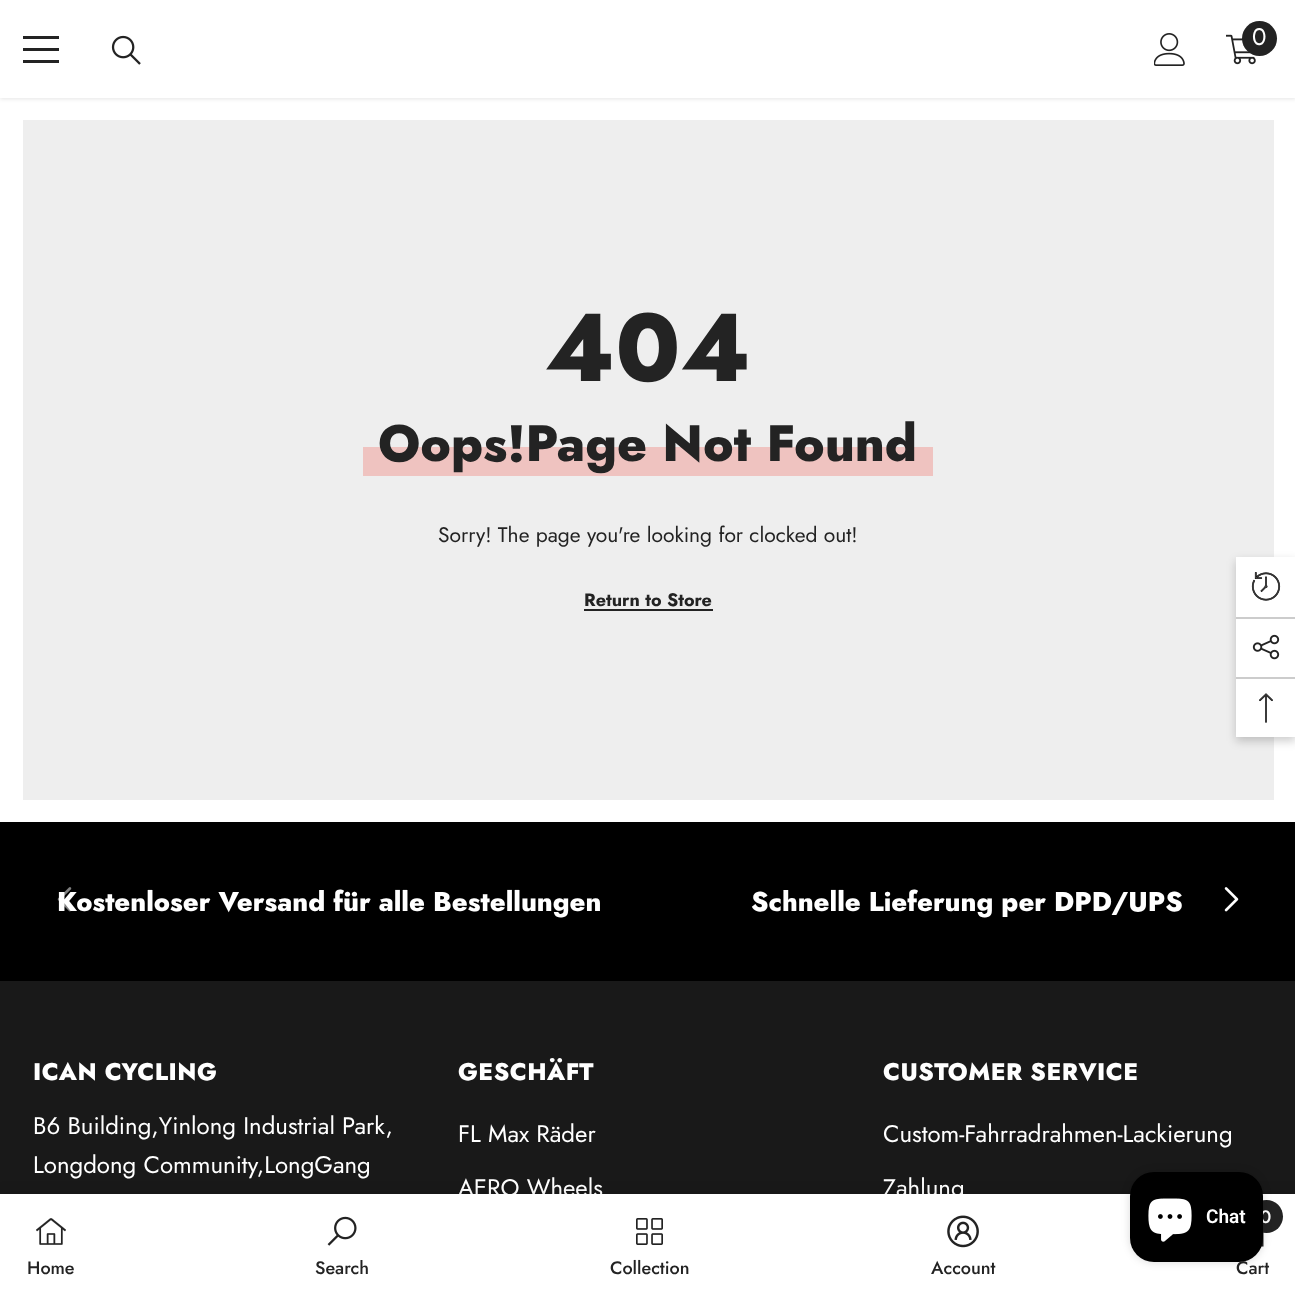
async function draw(canvas) {
  canvas.width = 1295
  canvas.height = 1293
  const ctx = canvas.getContext('2d')
  ctx.miterLimit = 4
  ctx.fontKerning = 'normal'
  async function loadImage(src) {
    const img = new Image()
    img.src = src
    await img.decode()
    return img
  }

  ctx.fillStyle = '#fff'
  ctx.fillRect(0, 0, 1295, 1293)
  ctx.fillStyle = '#0000001a'
  ctx.filter = 'blur(2px)'
  ctx.beginPath()
  ctx.rect(0, 2, 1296, 97)
  ctx.fill()
  ctx.filter = 'none'
  ctx.fillStyle = '#fff'
  ctx.fillRect(0, 0, 1295, 98)
  ctx.fillStyle = '#232323'
  ctx.fillRect(23, 48, 36, 3)
  ctx.fillRect(23, 36, 36, 3)
  ctx.fillRect(23, 60, 36, 3)
  ctx.drawImage(await loadImage('image0.png'), 111, 35, 30, 30)
  ctx.drawImage(await loadImage('image1.png'), 1154, 33, 31, 33)
  ctx.drawImage(await loadImage('image2.png'), 1226, 34, 30, 31)
  ctx.beginPath()
  ctx.arc(1259.5, 38.5, 17.5, 0, 2 * Math.PI)
  ctx.fill()
  ctx.font = '24px Jost'
  ctx.fillStyle = '#fff'
  ctx.fillText('0', 1252, 45)
  ctx.fillStyle = '#eee'
  ctx.fillRect(23, 120, 1251, 680)
  ctx.font = '800 96px Jost'
  ctx.fillStyle = '#232323'
  ctx.fillText('404', 545, 381)
  ctx.fillStyle = '#efc3c0'
  ctx.fillRect(363, 447, 570, 29)
  ctx.font = '800 51px Jost'
  ctx.fillStyle = '#232323'
  ctx.fillText('Oops!Page Not Found', 378, 461)
  ctx.font = '21px Jost'
  ctx.fillText('Sorry! The page you\'re looking for clocked out!', 438, 542)
  ctx.font = 'bold 18px Jost'
  ctx.fillText('Return to Store', 584, 606)
  ctx.fillRect(584, 609, 129, 2)
  ctx.fillStyle = '#000'
  ctx.fillRect(0, 822, 1295, 159)
  ctx.font = '800 27px Jost'
  ctx.fillStyle = '#fff'
  ctx.fillText('Kostenloser Versand für alle Bestellungen', 57, 911)
  ctx.drawImage(await loadImage('image3.png'), 57, 887, 15, 25)
  ctx.drawImage(await loadImage('image4.png'), 1224, 887, 15, 25)
  ctx.fillText('Schnelle Lieferung per DPD/UPS', 751, 911)
  ctx.fillStyle = '#191919'
  ctx.fillRect(0, 981, 1295, 213)
  ctx.letterSpacing = '0.5px'
  ctx.font = '800 24px Jost'
  ctx.fillStyle = '#fff'
  ctx.fillText('ICAN CYCLING', 33, 1080)
  ctx.letterSpacing = '0px'
  ctx.font = '24px Jost'
  ctx.fillText('B6 Building,Yinlong Industrial Park,', 33, 1134)
  ctx.fillText('Longdong Community,LongGang', 33, 1173)
  ctx.letterSpacing = '0.5px'
  ctx.font = '800 24px Jost'
  ctx.fillText('GESCHÄFT', 458, 1080)
  ctx.letterSpacing = '0px'
  ctx.font = '24px Jost'
  ctx.fillText('FL Max Räder', 458, 1142)
  ctx.fillText('AERO Wheels', 458, 1196)
  ctx.letterSpacing = '0.5px'
  ctx.font = '800 24px Jost'
  ctx.fillText('CUSTOMER SERVICE', 883, 1080)
  ctx.letterSpacing = '0px'
  ctx.font = '24px Jost'
  ctx.fillText('Custom-Fahrradrahmen-Lackierung', 883, 1142)
  ctx.fillText('Zahlung', 883, 1196)
  ctx.fillStyle = '#0000001f'
  ctx.filter = 'blur(7px)'
  ctx.beginPath()
  ctx.rect(0, 1194, 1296, 99)
  ctx.fill()
  ctx.filter = 'none'
  ctx.fillStyle = '#fff'
  ctx.fillRect(0, 1194, 1295, 99)
  ctx.drawImage(await loadImage('image5.png'), 36, 1218, 30, 27)
  ctx.font = '500 18px Jost'
  ctx.fillStyle = '#232323'
  ctx.fillText('Home', 27, 1274)
  ctx.drawImage(await loadImage('image6.png'), 327, 1216, 30, 30)
  ctx.fillText('Search', 315, 1274)
  ctx.drawImage(await loadImage('image7.png'), 636, 1218, 27, 27)
  ctx.fillText('Collection', 610, 1274)
  ctx.drawImage(await loadImage('image8.png'), 947, 1215, 32, 33)
  ctx.fillText('Account', 931, 1274)
  ctx.drawImage(await loadImage('image9.png'), 1261, 1232, 3, 15)
  ctx.beginPath()
  ctx.arc(1266.5, 1216.5, 16.5, 0, 2 * Math.PI)
  ctx.fill()
  ctx.fillStyle = '#fff'
  ctx.fillText('0', 1260, 1223)
  ctx.fillStyle = '#232323'
  ctx.fillText('Cart', 1236, 1274)
  ctx.fillStyle = '#00000033'
  ctx.filter = 'blur(5px)'
  ctx.beginPath()
  ctx.rect(1236, 561, 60, 180)
  ctx.fill()
  ctx.filter = 'none'
  ctx.fillStyle = '#fff'
  ctx.fillRect(1236, 557, 59, 180)
  ctx.drawImage(await loadImage('image10.png'), 1251, 572, 30, 29)
  ctx.fillStyle = '#ccc'
  ctx.fillRect(1236, 617, 59, 2)
  ctx.drawImage(await loadImage('image11.png'), 1252, 634, 28, 26)
  ctx.fillRect(1236, 677, 59, 2)
  ctx.drawImage(await loadImage('image12.png'), 1259, 693, 14, 30)
  ctx.fillStyle = '#00000026'
  ctx.filter = 'blur(4px)'
  ctx.beginPath()
  ctx.roundRect(1130, 1172, 133, 90, 24)
  ctx.fill()
  ctx.filter = 'none'
  ctx.fillStyle = '#000'
  ctx.beginPath()
  ctx.roundRect(1130, 1172, 133, 90, 24)
  ctx.fill()
  ctx.drawImage(await loadImage('image13.png'), 1148, 1198, 44, 44)
  ctx.font = '600 19px Roboto'
  ctx.fillStyle = '#fff'
  ctx.fillText('Chat', 1206, 1223)
}

draw(document.querySelector('canvas'))
